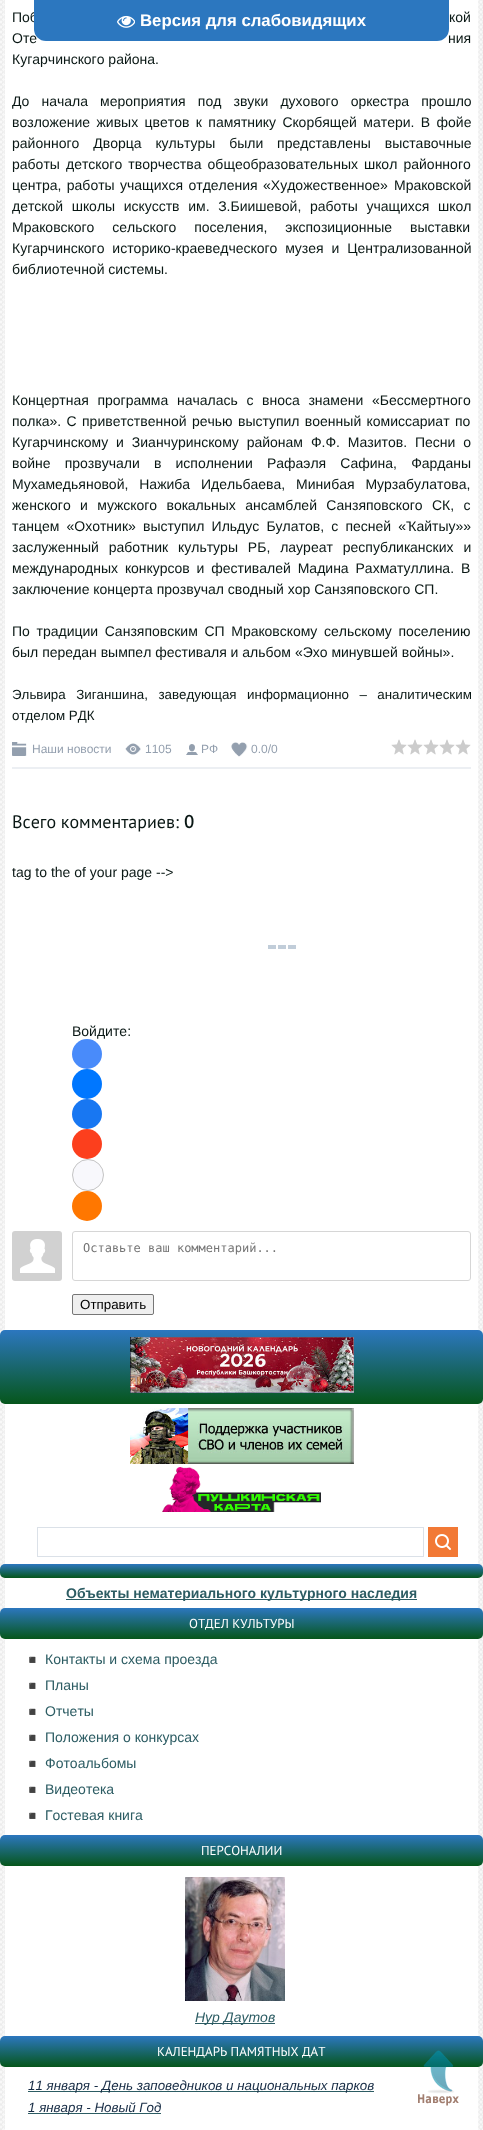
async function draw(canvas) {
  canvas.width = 483
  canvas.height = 2130
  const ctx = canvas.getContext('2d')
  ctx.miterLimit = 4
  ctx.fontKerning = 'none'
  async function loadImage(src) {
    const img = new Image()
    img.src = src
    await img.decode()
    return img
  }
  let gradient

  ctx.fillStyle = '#fff'
  ctx.fillRect(0, 0, 483, 2130)
  ctx.drawImage(await loadImage('image0.png'), 0, 0, 483, 2130)
  ctx.fillRect(5, 0, 473, 1330)
  ctx.fillStyle = '#eceff3'
  ctx.fillRect(12, 767, 459, 2)
  ctx.wordSpacing = '11px'
  ctx.font = '14px Liberation Sans'
  ctx.fillStyle = '#091714'
  ctx.fillText('Поб', 12, 22)
  ctx.fillText('кой', 449, 22)
  ctx.wordSpacing = '7px'
  ctx.fillText('Оте', 12, 43)
  ctx.fillText('ния', 448, 43)
  ctx.wordSpacing = '0px'
  ctx.fillText('Кугарчинского района.', 12, 64)
  ctx.wordSpacing = '8.25px'
  ctx.fillText('До начала мероприятия под звуки духового оркестра прошло', 12, 106)
  ctx.wordSpacing = '2.5px'
  ctx.fillText('возложение живых цветов к памятнику Скорбящей матери. В фойе', 12, 127)
  ctx.wordSpacing = '10px'
  ctx.fillText('районного Дворца культуры были представлены выставочные', 12, 148)
  ctx.wordSpacing = '2.25px'
  ctx.fillText('работы детского творчества общеобразовательных', 12, 169)
  ctx.fillText('школ районного', 364, 169)
  ctx.wordSpacing = '1.5px'
  ctx.fillText('центра, работы учащихся отделения «Художественное»', 12, 190)
  ctx.fillText('Мраковской', 394, 190)
  ctx.wordSpacing = '4.75px'
  ctx.fillText('детской школы искусств им. З.Биишевой, работы учащихся школ', 12, 211)
  ctx.wordSpacing = '14px'
  ctx.fillText('Мраковского сельского поселения, экспозиционные выставки', 12, 232)
  ctx.wordSpacing = '4px'
  ctx.fillText('Кугарчинского историко-краеведческого музея и Централизованной', 12, 253)
  ctx.wordSpacing = '0px'
  ctx.fillText('библиотечной системы.', 12, 274)
  ctx.wordSpacing = '4.75px'
  ctx.fillText('Концертная программа началась с вноса знамени «Бессмертного', 12, 405)
  ctx.wordSpacing = '1.5px'
  ctx.fillText('полка». С приветственной речью выступил военный комиссариат по', 12, 426)
  ctx.wordSpacing = '4px'
  ctx.fillText('Кугарчинскому и Зианчуринскому районам Ф.Ф. Мазитов. Песни о', 12, 447)
  ctx.wordSpacing = '10.25px'
  ctx.fillText('войне прозвучали в исполнении Рафаэля Сафина, Фарданы', 12, 468)
  ctx.wordSpacing = '7px'
  ctx.fillText('Мухамедьяновой, Нажиба Идельбаева, Минибая Мурзабулатова,', 12, 489)
  ctx.wordSpacing = '5.5px'
  ctx.fillText('женского и мужского вокальных ансамблей Санзяповского СК, с', 12, 510)
  ctx.wordSpacing = '3.25px'
  ctx.fillText('танцем «Охотник» выступил Ильдус Булатов, с песней «Ҡайтыу»»', 12, 531)
  ctx.wordSpacing = '6px'
  ctx.fillText('заслуженный работник культуры РБ, лауреат республиканских и', 12, 552)
  ctx.wordSpacing = '3px'
  ctx.fillText('международных конкурсов и фестивалей Мадина Рахматуллина. В', 12, 573)
  ctx.wordSpacing = '0px'
  ctx.fillText('заключение концерта прозвучал сводный хор Санзяповского СП.', 12, 594)
  ctx.wordSpacing = '2.75px'
  ctx.fillText('По традиции Санзяповским СП Мраковскому сельскому поселению', 12, 636)
  ctx.wordSpacing = '0px'
  ctx.fillText('был передан вымпел фестиваля и альбом «Эхо минувшей войны».', 12, 657)
  ctx.wordSpacing = '6.75px'
  ctx.font = '13.35px Liberation Sans'
  ctx.fillText('Эльвира Зиганшина, заведующая информационно – аналитическим', 12, 699)
  ctx.wordSpacing = '0px'
  ctx.fillText('отделом РДК', 12, 720)
  ctx.drawImage(await loadImage('image1.png'), 12, 742, 15, 14)
  ctx.font = '12px Liberation Sans'
  ctx.fillStyle = '#939fae'
  ctx.fillText('Наши новости', 32, 753)
  ctx.drawImage(await loadImage('image2.png'), 125, 743, 16, 12)
  ctx.fillText('1105', 145, 753)
  ctx.drawImage(await loadImage('image3.png'), 186, 744, 12, 11)
  ctx.fillText('РФ', 201, 753)
  ctx.drawImage(await loadImage('image4.png'), 231, 742, 17, 15)
  ctx.fillText('0.0/0', 251, 753)
  ctx.drawImage(await loadImage('image5.png'), 391, 739, 80, 16)
  ctx.font = '18px PT Sans'
  ctx.fillStyle = '#091714'
  ctx.fillText('Всего комментариев:', 12, 828)
  ctx.font = 'bold 18px PT Sans'
  ctx.fillText('0', 184, 828)
  ctx.font = '14px Liberation Sans'
  ctx.fillText('tag to the of your page -->', 12, 877)
  ctx.drawImage(await loadImage('image6.png'), 268, 945, 28, 4)
  ctx.fillText('Войдите:', 72, 1036)
  ctx.fillStyle = '#498bfa'
  ctx.beginPath()
  ctx.arc(87, 1054, 15, 0, 2 * Math.PI)
  ctx.fill()
  ctx.fillStyle = '#07f'
  ctx.beginPath()
  ctx.arc(87, 1084, 15, 0, 2 * Math.PI)
  ctx.fill()
  ctx.fillStyle = '#1877f2'
  ctx.beginPath()
  ctx.arc(87, 1114, 15, 0, 2 * Math.PI)
  ctx.fill()
  ctx.fillStyle = '#fc3f1d'
  ctx.beginPath()
  ctx.arc(87, 1144, 15, 0, 2 * Math.PI)
  ctx.fill()
  ctx.fillStyle = '#f8f8fc'
  ctx.beginPath()
  ctx.arc(88, 1175, 15.5, 0, 2 * Math.PI)
  ctx.fill()
  ctx.strokeStyle = '#c4c4c4'
  ctx.stroke()
  ctx.fillStyle = '#f70'
  ctx.beginPath()
  ctx.arc(87, 1206, 15, 0, 2 * Math.PI)
  ctx.fill()
  ctx.drawImage(await loadImage('image7.png'), 12, 1231, 50, 50)
  ctx.beginPath()
  ctx.roundRect(72.5, 1231.5, 398, 49, 2.5)
  ctx.strokeStyle = '#d6d6d6'
  ctx.stroke()
  ctx.font = '12px DejaVu Sans Mono'
  ctx.fillStyle = '#757575'
  ctx.fillText('Оставьте ваш комментарий...', 83, 1252)
  ctx.fillStyle = '#efefef'
  ctx.beginPath()
  ctx.roundRect(72.5, 1294.5, 81, 20, 1.5)
  ctx.fill()
  ctx.strokeStyle = '#767676'
  ctx.stroke()
  ctx.font = '13.35px Liberation Sans'
  ctx.fillStyle = '#000'
  ctx.fillText('Отправить', 80, 1309)
  ctx.fillStyle = '#fff'
  ctx.fillRect(5, 1404, 473, 726)
  gradient = ctx.createLinearGradient(242, 1330, 242, 1404)
  gradient.addColorStop(0, '#2c77bf')
  gradient.addColorStop(1, '#06561b')
  ctx.fillStyle = gradient
  ctx.beginPath()
  ctx.roundRect(0, 1330, 483, 74, 5)
  ctx.fill()
  ctx.drawImage(await loadImage('image8.png'), 130, 1337, 224, 56)
  ctx.drawImage(await loadImage('image9.png'), 130, 1408, 224, 56)
  ctx.drawImage(await loadImage('image10.png'), 162, 1467, 159, 45)
  ctx.strokeStyle = '#dbe1e8'
  ctx.strokeRect(37.5, 1527.5, 386, 29)
  ctx.fillStyle = '#f27935'
  ctx.fillRect(428, 1527, 30, 30)
  ctx.drawImage(await loadImage('image11.png'), 435, 1534, 16, 16)
  gradient = ctx.createLinearGradient(242, 1564, 242, 1578)
  gradient.addColorStop(0, '#2c77bf')
  gradient.addColorStop(1, '#06561b')
  ctx.fillStyle = gradient
  ctx.beginPath()
  ctx.roundRect(0, 1564, 483, 14, 5)
  ctx.fill()
  ctx.fillStyle = '#2c5c63'
  ctx.fillRect(66, 1599, 351, 1)
  ctx.font = 'bold 14px Liberation Sans'
  ctx.fillText('Объекты нематериального культурного наследия', 66, 1598)
  gradient = ctx.createLinearGradient(242, 1608, 242, 1639)
  gradient.addColorStop(0, '#2c77bf')
  gradient.addColorStop(1, '#06561b')
  ctx.fillStyle = gradient
  ctx.beginPath()
  ctx.roundRect(0, 1608, 483, 31, 5)
  ctx.fill()
  ctx.font = '13px PT Sans'
  ctx.fillStyle = '#fff'
  ctx.fillText('ОТДЕЛ КУЛЬТУРЫ', 189, 1628)
  ctx.font = '12px Noto Color Emoji'
  ctx.fillStyle = '#dadddf'
  ctx.fillText('◾', 25, 1664)
  ctx.font = '14px Liberation Sans'
  ctx.fillStyle = '#2c5c63'
  ctx.fillText('Контакты и схема проезда', 45, 1664)
  ctx.font = '12px Noto Color Emoji'
  ctx.fillStyle = '#dadddf'
  ctx.fillText('◾', 25, 1690)
  ctx.font = '14px Liberation Sans'
  ctx.fillStyle = '#2c5c63'
  ctx.fillText('Планы', 45, 1690)
  ctx.font = '12px Noto Color Emoji'
  ctx.fillStyle = '#dadddf'
  ctx.fillText('◾', 25, 1716)
  ctx.font = '14px Liberation Sans'
  ctx.fillStyle = '#2c5c63'
  ctx.fillText('Отчеты', 45, 1716)
  ctx.font = '12px Noto Color Emoji'
  ctx.fillStyle = '#dadddf'
  ctx.fillText('◾', 25, 1742)
  ctx.font = '14px Liberation Sans'
  ctx.fillStyle = '#2c5c63'
  ctx.fillText('Положения о конкурсах', 45, 1742)
  ctx.font = '12px Noto Color Emoji'
  ctx.fillStyle = '#dadddf'
  ctx.fillText('◾', 25, 1768)
  ctx.font = '14px Liberation Sans'
  ctx.fillStyle = '#2c5c63'
  ctx.fillText('Фотоальбомы', 45, 1768)
  ctx.font = '12px Noto Color Emoji'
  ctx.fillStyle = '#dadddf'
  ctx.fillText('◾', 25, 1794)
  ctx.font = '14px Liberation Sans'
  ctx.fillStyle = '#2c5c63'
  ctx.fillText('Видеотека', 45, 1794)
  ctx.font = '12px Noto Color Emoji'
  ctx.fillStyle = '#dadddf'
  ctx.fillText('◾', 25, 1820)
  ctx.font = '14px Liberation Sans'
  ctx.fillStyle = '#2c5c63'
  ctx.fillText('Гостевая книга', 45, 1820)
  gradient = ctx.createLinearGradient(242, 1835, 242, 1866)
  gradient.addColorStop(0, '#2c77bf')
  gradient.addColorStop(1, '#06561b')
  ctx.fillStyle = gradient
  ctx.beginPath()
  ctx.roundRect(0, 1835, 483, 31, 5)
  ctx.fill()
  ctx.font = '13px PT Sans'
  ctx.fillStyle = '#fff'
  ctx.fillText('ПЕРСОНАЛИИ', 201, 1855)
  ctx.drawImage(await loadImage('image12.png'), 185, 1877, 100, 124)
  ctx.fillStyle = '#2c5c63'
  ctx.fillRect(195, 2023, 80, 1)
  ctx.font = 'italic 14px Liberation Sans'
  ctx.fillText('Нур Даутов', 195, 2022)
  gradient = ctx.createLinearGradient(242, 2036, 242, 2067)
  gradient.addColorStop(0, '#2c77bf')
  gradient.addColorStop(1, '#06561b')
  ctx.fillStyle = gradient
  ctx.beginPath()
  ctx.roundRect(0, 2036, 483, 31, 5)
  ctx.fill()
  ctx.font = '13px PT Sans'
  ctx.fillStyle = '#fff'
  ctx.fillText('КАЛЕНДАРЬ ПАМЯТНЫХ ДАТ', 157, 2056)
  ctx.fillStyle = '#2c5c63'
  ctx.fillRect(28, 2091, 346, 1)
  ctx.font = 'italic 13.35px Liberation Sans'
  ctx.fillStyle = '#162b44'
  ctx.fillText('11 января - День заповедников и национальных парков', 28, 2090)
  ctx.fillStyle = '#2c5c63'
  ctx.fillRect(28, 2113, 133, 1)
  ctx.fillStyle = '#162b44'
  ctx.fillText('1 января - Новый Год', 28, 2112)
  ctx.fillStyle = '#2c77bf'
  ctx.beginPath()
  ctx.roundRect(34, 0, 415, 41, [0, 0, 12, 12])
  ctx.fill()
  ctx.drawImage(await loadImage('image13.png'), 117, 15, 18, 13)
  ctx.font = 'bold 16.75px Liberation Sans'
  ctx.fillStyle = '#fff'
  ctx.fillText('Версия для слабовидящих', 140, 26)
  ctx.drawImage(await loadImage('image14.png'), 418, 2050, 41, 56)
}

draw(document.querySelector('canvas'))
